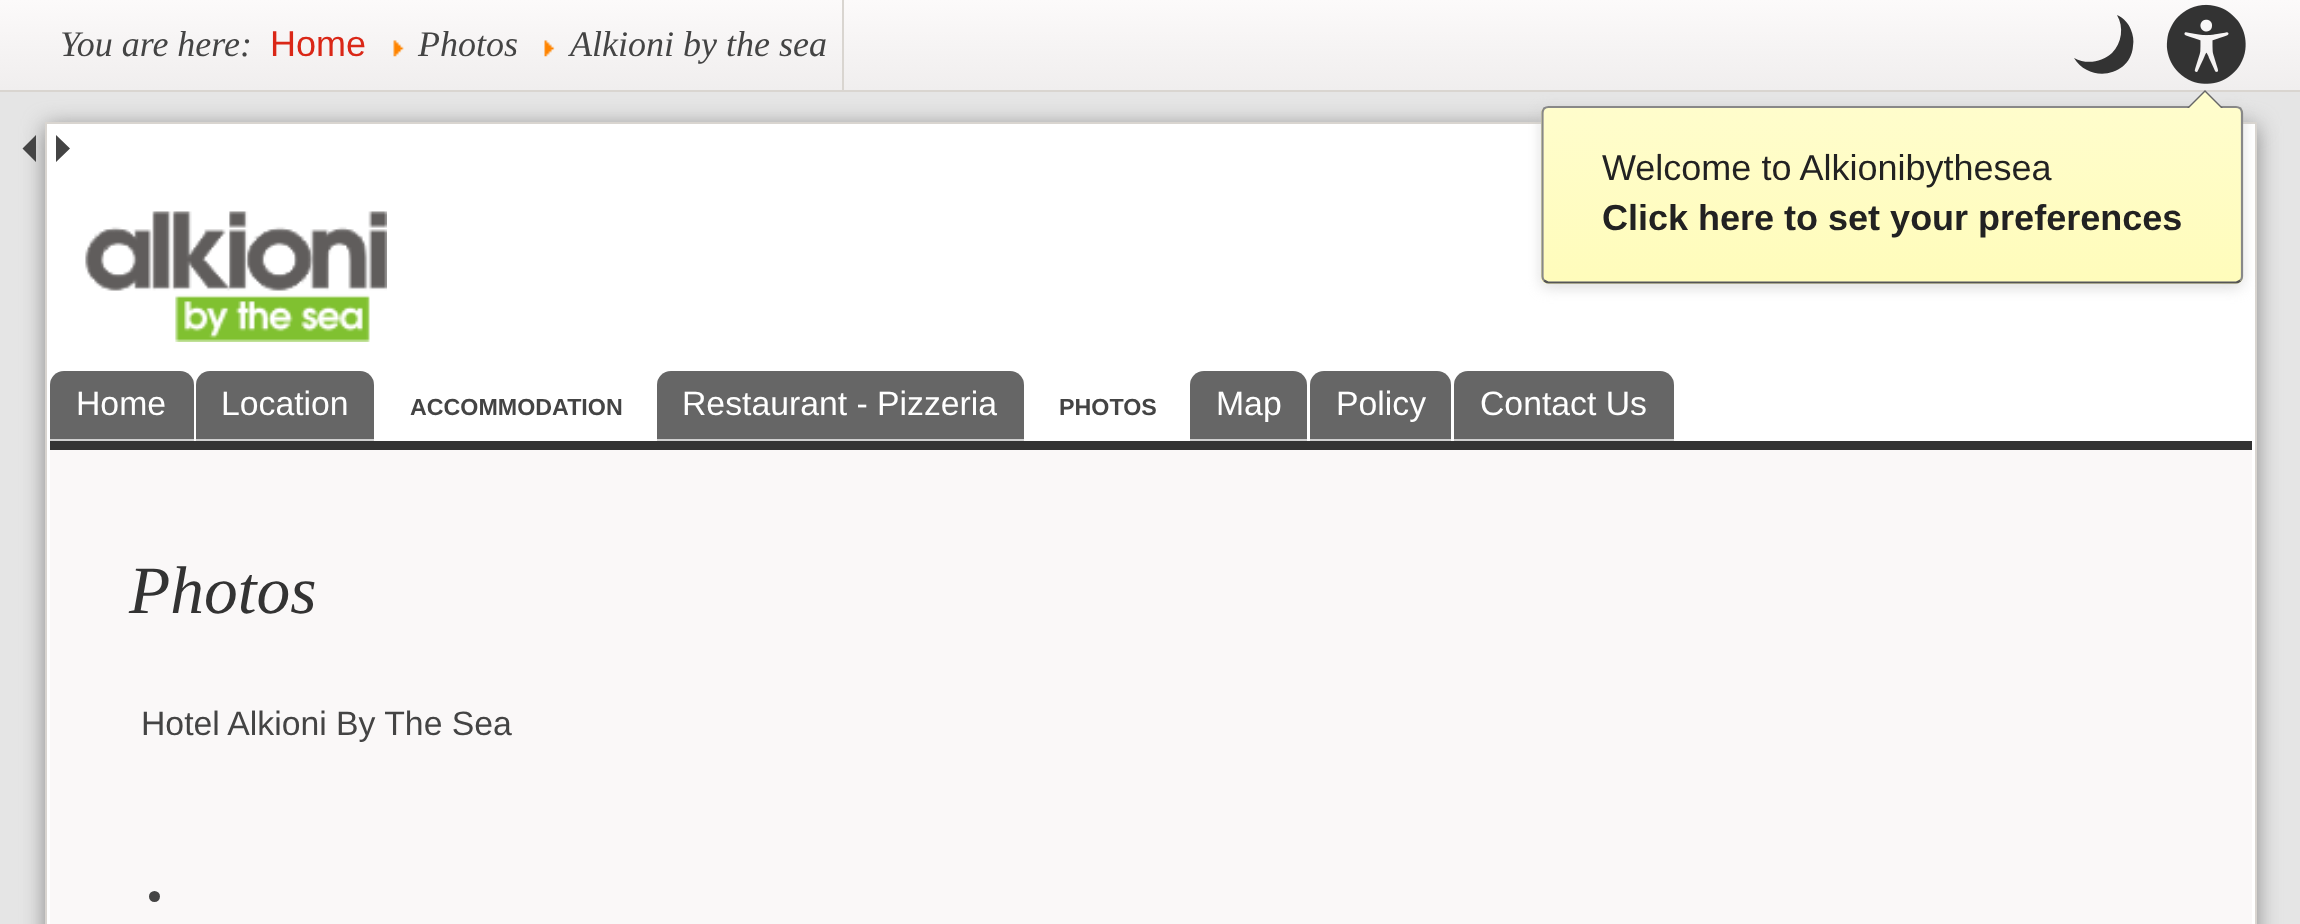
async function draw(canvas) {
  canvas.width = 2300
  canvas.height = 924
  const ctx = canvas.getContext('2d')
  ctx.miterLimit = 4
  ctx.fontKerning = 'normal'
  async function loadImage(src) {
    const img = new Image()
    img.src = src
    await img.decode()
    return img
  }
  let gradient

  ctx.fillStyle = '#e5e5e5'
  ctx.fillRect(0, 0, 2300, 924)
  gradient = ctx.createLinearGradient(1151, 0, 1151, 90)
  gradient.addColorStop(0, '#fcfafa')
  gradient.addColorStop(1, '#f0eeee')
  ctx.fillStyle = gradient
  ctx.fillRect(0, 0, 2300, 90)
  ctx.fillStyle = '#d9d5d0'
  ctx.fillRect(0, 90, 2300, 2)
  ctx.fillRect(842, 0, 2, 90)
  ctx.font = 'italic 36px Liberation Serif'
  ctx.fillStyle = '#444'
  ctx.fillText('You are here:', 60, 56)
  ctx.font = '36px Liberation Sans'
  ctx.fillStyle = '#da2717'
  ctx.fillText('Home', 270, 56)
  ctx.drawImage(await loadImage('image0.png'), 393, 40, 11, 17)
  ctx.font = 'italic 36px Liberation Serif'
  ctx.fillStyle = '#444'
  ctx.fillText('Photos', 418, 56)
  ctx.drawImage(await loadImage('image1.png'), 544, 40, 11, 17)
  ctx.fillText('Alkioni by the sea', 570, 56)
  ctx.fillStyle = '#333'
  ctx.beginPath()
  ctx.moveTo(2112, 53)
  ctx.bezierCurveTo(2122, 43, 2124, 27, 2117, 15)
  ctx.bezierCurveTo(2124, 18, 2129, 24, 2131, 30)
  ctx.bezierCurveTo(2133, 35, 2134, 40, 2133, 46)
  ctx.bezierCurveTo(2131, 76, 2090, 84, 2074, 58)
  ctx.bezierCurveTo(2087, 65, 2102, 62, 2112, 53)
  ctx.closePath()
  ctx.fill()
  ctx.drawImage(await loadImage('image2.png'), 2166, 4, 80, 80)
  ctx.fillStyle = '#888'
  ctx.filter = 'blur(11px)'
  ctx.beginPath()
  ctx.rect(45, 126, 2212, 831)
  ctx.fill()
  ctx.filter = 'none'
  ctx.fillStyle = '#fff'
  ctx.beginPath()
  ctx.rect(46, 123, 2210, 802)
  ctx.fill()
  ctx.strokeStyle = '#d9d5d0'
  ctx.lineWidth = 2
  ctx.stroke()
  ctx.fillStyle = '#c8c8c899'
  ctx.filter = 'blur(7px)'
  ctx.beginPath()
  ctx.roundRect(1541, 110, 702, 178, 7)
  ctx.fill()
  ctx.filter = 'none'
  ctx.save()
  ctx.beginPath()
  ctx.roundRect(1541, 106, 702, 178, 7)
  ctx.clip()
  gradient = ctx.createLinearGradient(1892, 108, 1892, 281)
  gradient.addColorStop(0, '#fffdcc')
  gradient.addColorStop(1, '#fffcbb')
  ctx.fillStyle = gradient
  ctx.fillRect(1541, 108, 702, 173)
  gradient = ctx.createLinearGradient(1892, 281, 1892, 455)
  gradient.addColorStop(0, '#fffdcc')
  gradient.addColorStop(1, '#fffcbb')
  ctx.fillStyle = gradient
  ctx.fillRect(1541, 281, 702, 3)
  ctx.restore()
  ctx.beginPath()
  ctx.moveTo(2240.5, 280.5)
  ctx.bezierCurveTo(2239, 281.5, 2237.5, 282.5, 2236, 282.5)
  ctx.lineTo(1548.5, 282.5)
  ctx.bezierCurveTo(1547, 282.5, 1545.5, 281.5, 1544, 280.5)
  ctx.strokeStyle = '#555'
  ctx.lineWidth = 2.2
  ctx.stroke()
  ctx.beginPath()
  ctx.moveTo(1544, 280.5)
  ctx.bezierCurveTo(1543, 279.5, 1542.5, 278, 1542.5, 276.5)
  ctx.lineTo(1542.5, 113)
  ctx.bezierCurveTo(1542.5, 111.5, 1543, 110, 1544, 108.5)
  ctx.bezierCurveTo(1545.5, 107.5, 1547, 107, 1548.5, 107)
  ctx.lineTo(2236, 107)
  ctx.bezierCurveTo(2237.5, 107, 2239, 107.5, 2240.5, 108.5)
  ctx.bezierCurveTo(2241.5, 110, 2242, 111.5, 2242, 113)
  ctx.lineTo(2242, 276.5)
  ctx.bezierCurveTo(2242, 278, 2241.5, 279.5, 2240.5, 280.5)
  ctx.strokeStyle = '#888'
  ctx.stroke()
  ctx.fillStyle = '#666'
  ctx.beginPath()
  ctx.moveTo(2223, 108)
  ctx.lineTo(2187, 108)
  ctx.lineTo(2205, 90)
  ctx.closePath()
  ctx.fill()
  ctx.fillStyle = '#fffdcc'
  ctx.beginPath()
  ctx.moveTo(2221, 108)
  ctx.lineTo(2189, 108)
  ctx.lineTo(2205, 92)
  ctx.closePath()
  ctx.fill()
  ctx.font = '36px Liberation Sans'
  ctx.fillStyle = '#222'
  ctx.fillText('Welcome to Alkionibythesea', 1602, 180)
  ctx.font = 'bold 36px Liberation Sans'
  ctx.fillText('Click here to set your preferences', 1602, 230)
  ctx.fillStyle = '#444'
  ctx.beginPath()
  ctx.moveTo(36, 135)
  ctx.lineTo(36, 162)
  ctx.lineTo(22.5, 148.5)
  ctx.closePath()
  ctx.moveTo(56, 162)
  ctx.lineTo(56, 135)
  ctx.lineTo(70, 148.5)
  ctx.closePath()
  ctx.fill()
  ctx.fillStyle = '#333'
  ctx.fillRect(50, 441, 2202, 9)
  ctx.drawImage(await loadImage('image3.png'), 85, 211, 302, 131)
  ctx.fillStyle = '#666'
  ctx.beginPath()
  ctx.roundRect(50, 371, 144, 70, [14, 14, 0, 0])
  ctx.fill()
  ctx.fillStyle = '#cfcfcf'
  ctx.fillRect(50, 439, 144, 2)
  ctx.font = '33.75px Liberation Sans'
  ctx.fillStyle = '#fff'
  ctx.fillText('Home', 76, 415)
  ctx.fillStyle = '#666'
  ctx.beginPath()
  ctx.roundRect(196, 371, 178, 70, [14, 14, 0, 0])
  ctx.fill()
  ctx.fillStyle = '#cfcfcf'
  ctx.fillRect(196, 439, 178, 2)
  ctx.fillStyle = '#fff'
  ctx.fillText('Location', 221, 415)
  ctx.font = 'bold 23.25px Liberation Sans'
  ctx.fillStyle = '#444'
  ctx.fillText('ACCOMMODATION', 410, 415)
  ctx.fillStyle = '#666'
  ctx.beginPath()
  ctx.roundRect(657, 371, 367, 70, [14, 14, 0, 0])
  ctx.fill()
  ctx.fillStyle = '#cfcfcf'
  ctx.fillRect(657, 439, 367, 2)
  ctx.font = '33.75px Liberation Sans'
  ctx.fillStyle = '#fff'
  ctx.fillText('Restaurant - Pizzeria', 682, 415)
  ctx.font = 'bold 23.25px Liberation Sans'
  ctx.fillStyle = '#444'
  ctx.fillText('PHOTOS', 1059, 415)
  ctx.fillStyle = '#666'
  ctx.beginPath()
  ctx.roundRect(1190, 371, 117, 70, [14, 14, 0, 0])
  ctx.fill()
  ctx.fillStyle = '#cfcfcf'
  ctx.fillRect(1190, 439, 117, 2)
  ctx.font = '33.75px Liberation Sans'
  ctx.fillStyle = '#fff'
  ctx.fillText('Map', 1216, 415)
  ctx.fillStyle = '#666'
  ctx.beginPath()
  ctx.roundRect(1310, 371, 141, 70, [14, 14, 0, 0])
  ctx.fill()
  ctx.fillStyle = '#cfcfcf'
  ctx.fillRect(1310, 439, 141, 2)
  ctx.fillStyle = '#fff'
  ctx.fillText('Policy', 1336, 415)
  ctx.fillStyle = '#666'
  ctx.beginPath()
  ctx.roundRect(1454, 371, 220, 70, [14, 14, 0, 0])
  ctx.fill()
  ctx.fillStyle = '#cfcfcf'
  ctx.fillRect(1454, 439, 220, 2)
  ctx.fillStyle = '#fff'
  ctx.fillText('Contact Us', 1480, 415)
  ctx.fillStyle = '#faf8f8'
  ctx.fillRect(50, 450, 2202, 474)
  ctx.font = 'italic 67.5px Liberation Serif'
  ctx.fillStyle = '#333'
  ctx.fillText('Photos', 129, 613)
  ctx.font = '33.75px Liberation Sans'
  ctx.fillStyle = '#444'
  ctx.fillText('Hotel Alkioni By The Sea', 141, 735)
  ctx.beginPath()
  ctx.arc(154.5, 896.5, 5.5, 0, 2 * Math.PI)
  ctx.fill()
}

draw(document.querySelector('canvas'))
